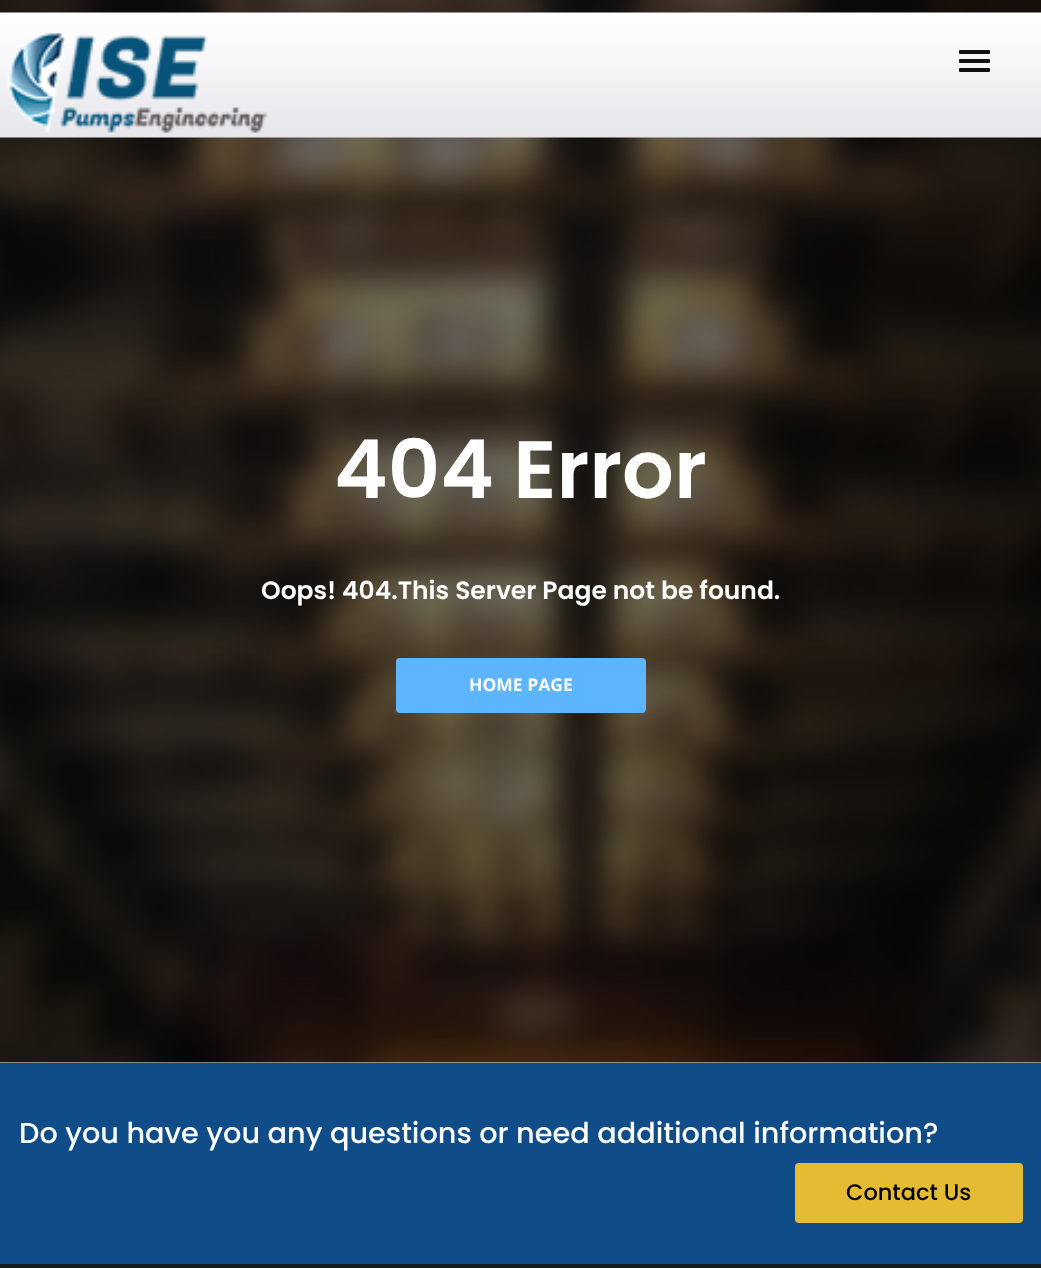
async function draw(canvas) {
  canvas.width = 1041
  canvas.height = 1268
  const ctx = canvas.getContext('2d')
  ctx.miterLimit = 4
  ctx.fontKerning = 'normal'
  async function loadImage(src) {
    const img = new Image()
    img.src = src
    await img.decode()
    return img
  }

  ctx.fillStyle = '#fff'
  ctx.fillRect(0, 0, 1041, 1268)
  ctx.drawImage(await loadImage('image2.png'), 0, 0, 1041, 1063)
  ctx.drawImage(await loadImage('image0.png'), 0, 12, 1041, 126)
  ctx.drawImage(await loadImage('image1.png'), 7, 32, 261, 101)
  ctx.fillStyle = '#111'
  ctx.beginPath()
  ctx.roundRect(959, 50, 31, 4, 1)
  ctx.fill()
  ctx.beginPath()
  ctx.roundRect(959, 59, 31, 4, 1)
  ctx.fill()
  ctx.beginPath()
  ctx.roundRect(959, 68, 31, 4, 1)
  ctx.fill()
  ctx.font = '600 81.25px Poppins'
  ctx.fillStyle = '#fff'
  ctx.fillText('404 Error', 334, 498)
  ctx.font = '600 25px Poppins'
  ctx.fillText('Oops! 404.This Server Page not be found.', 261, 599)
  ctx.fillStyle = '#5db5ff'
  ctx.beginPath()
  ctx.roundRect(396, 658, 250, 55, 4)
  ctx.fill()
  ctx.font = 'bold 17.5px Open Sans'
  ctx.fillStyle = '#fff'
  ctx.fillText('HOME PAGE', 469, 691)
  ctx.fillStyle = '#0f4c88'
  ctx.fillRect(0, 1063, 1041, 201)
  ctx.font = '500 28.75px Poppins'
  ctx.fillStyle = '#fff'
  ctx.fillText('Do you have you any questions or need additional information?', 19, 1143)
  ctx.fillStyle = '#e5bb34'
  ctx.beginPath()
  ctx.roundRect(795, 1163, 228, 60, 4)
  ctx.fill()
  ctx.font = '500 22.5px Poppins'
  ctx.fillStyle = '#000'
  ctx.fillText('Contact Us', 846, 1200)
  ctx.fillStyle = '#1a1a1a'
  ctx.fillRect(0, 1264, 1041, 4)
}

draw(document.querySelector('canvas'))
